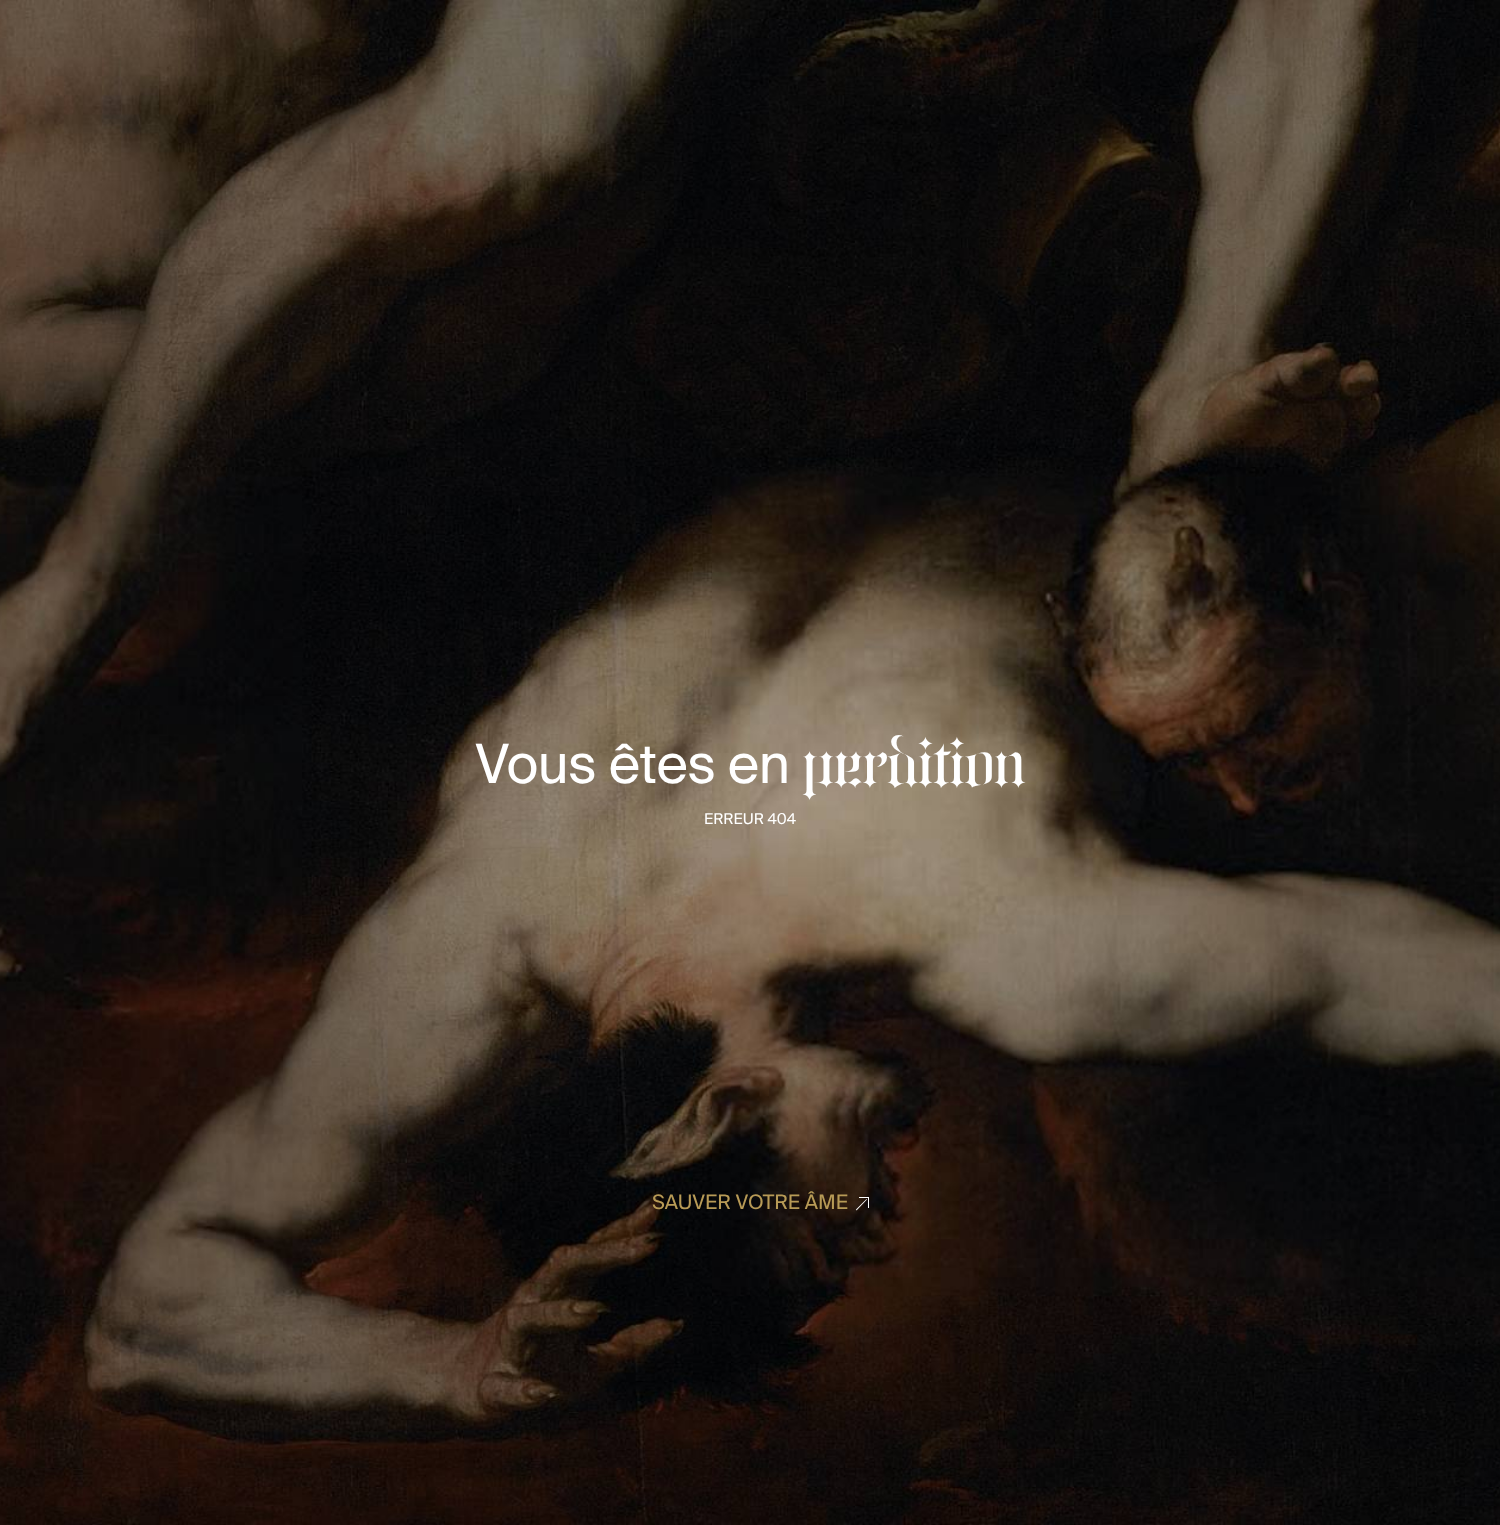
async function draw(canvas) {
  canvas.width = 1500
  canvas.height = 1525
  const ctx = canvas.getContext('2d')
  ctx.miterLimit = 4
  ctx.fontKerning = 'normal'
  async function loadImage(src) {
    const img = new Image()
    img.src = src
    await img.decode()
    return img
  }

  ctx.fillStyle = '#fff'
  ctx.fillRect(0, 0, 1500, 1525)
  ctx.drawImage(await loadImage('image0.png'), 0, 0, 1500, 1525)
  ctx.letterSpacing = '-0.4px'
  ctx.font = '54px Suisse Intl'
  ctx.fillText('Vous êtes en', 475, 783)
  ctx.letterSpacing = '-1.75px'
  ctx.font = '500 65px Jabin'
  ctx.fillText('perdition', 802, 787)
  ctx.letterSpacing = '0px'
  ctx.font = '15px Suisse Intl'
  ctx.fillText('ERREUR 404', 704, 824)
  ctx.font = '20px Suisse Intl'
  ctx.fillStyle = '#b79a56'
  ctx.fillText('SAUVER VOTRE ÂME', 652, 1209)
  ctx.fillStyle = '#fff'
  ctx.fillRect(859, 1197, 10, 1)
  ctx.fillRect(868, 1197, 1, 11)
  ctx.beginPath()
  ctx.moveTo(856, 1209.5)
  ctx.lineTo(866.5, 1199)
  ctx.lineTo(867, 1199.5)
  ctx.lineTo(856.5, 1210.5)
  ctx.closePath()
  ctx.fill()
}

draw(document.querySelector('canvas'))
